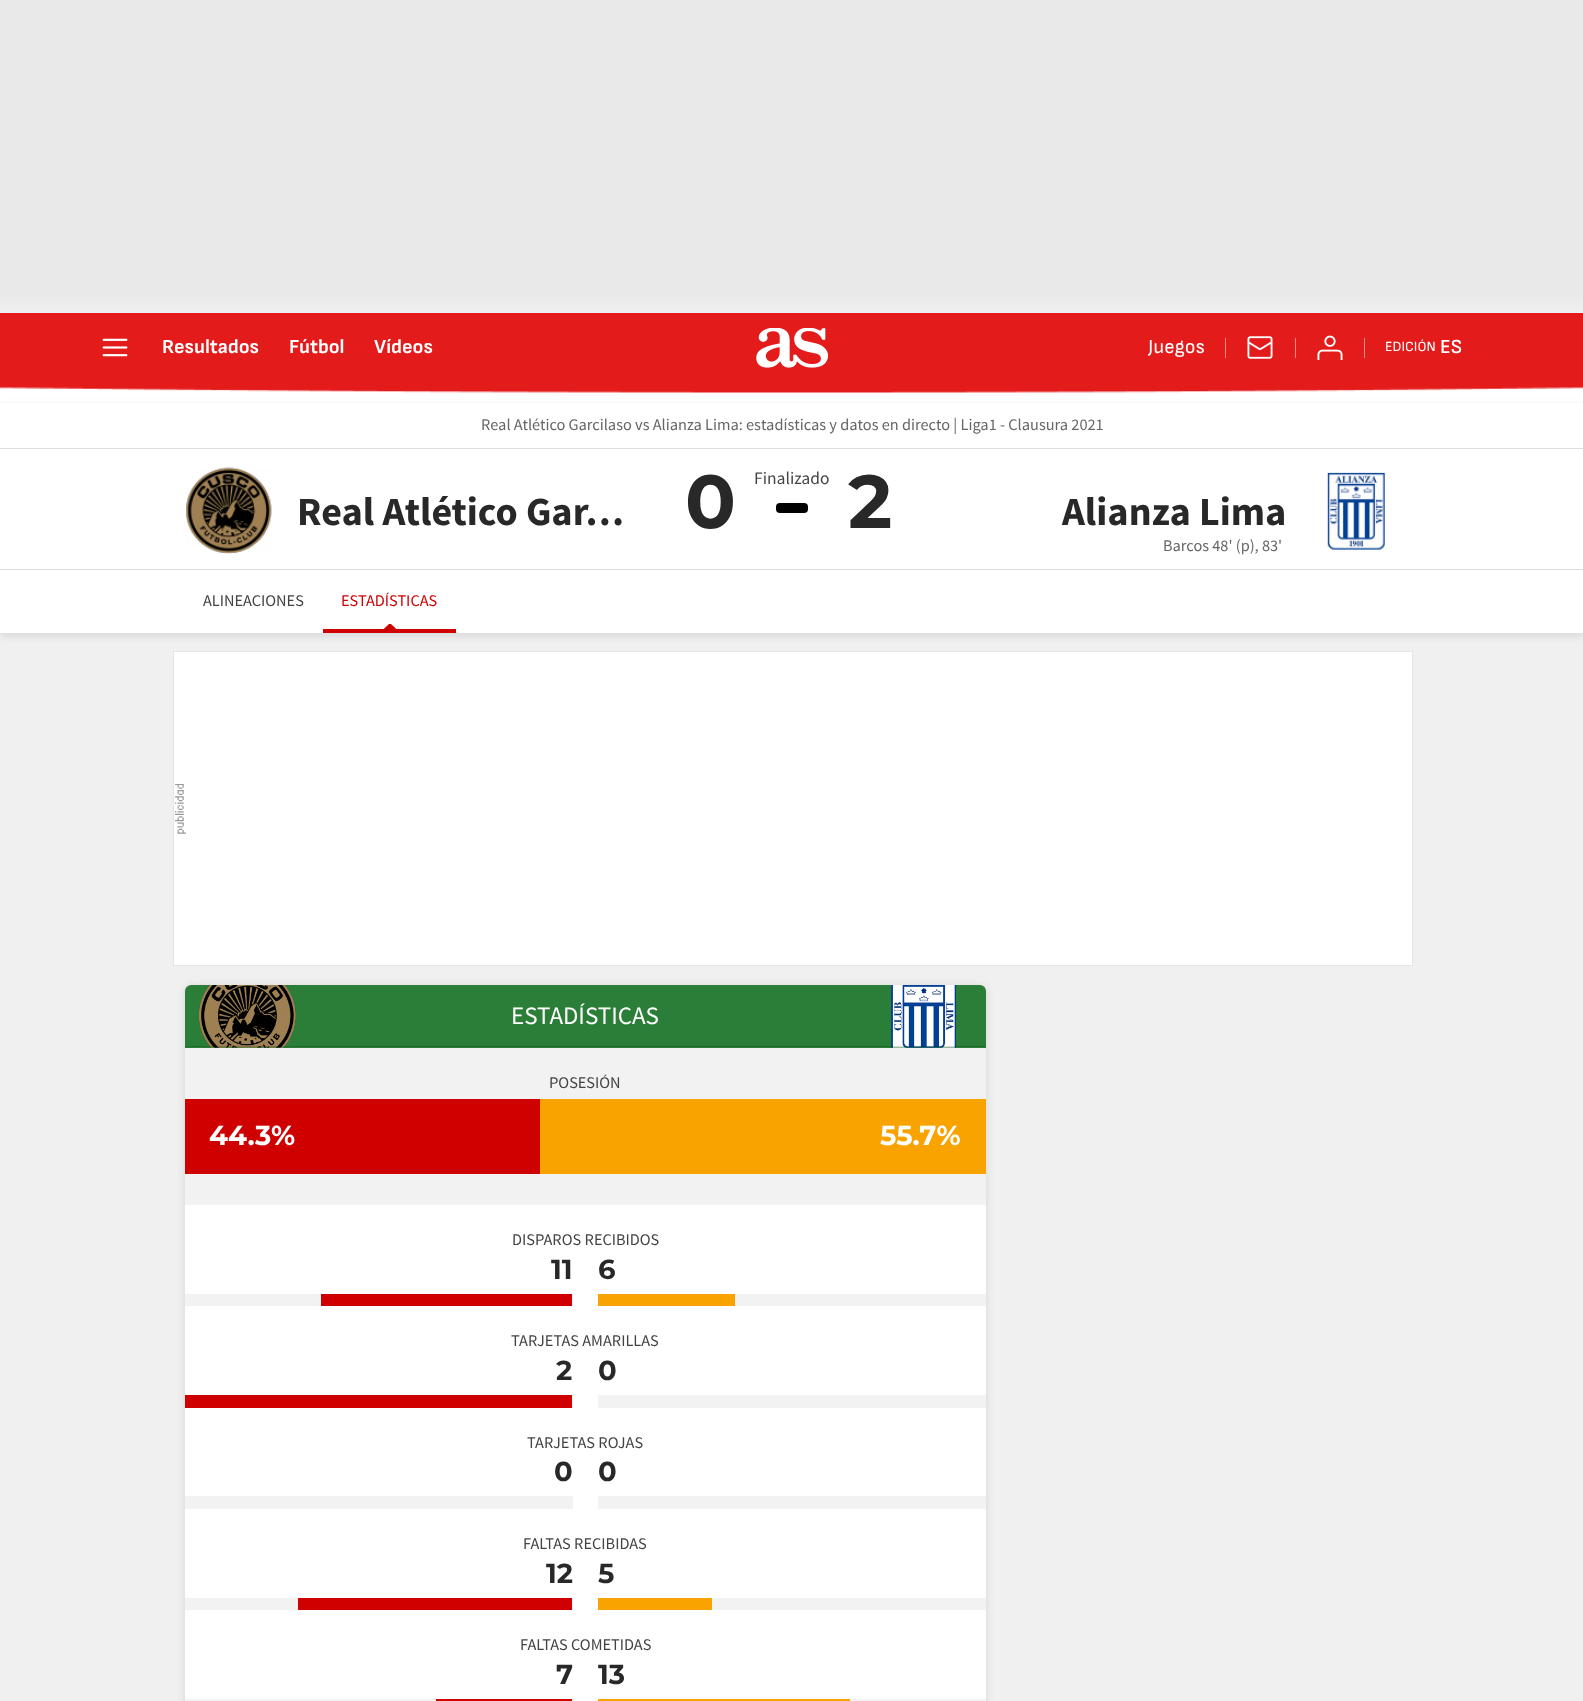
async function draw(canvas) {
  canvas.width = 1583
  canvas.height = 1701
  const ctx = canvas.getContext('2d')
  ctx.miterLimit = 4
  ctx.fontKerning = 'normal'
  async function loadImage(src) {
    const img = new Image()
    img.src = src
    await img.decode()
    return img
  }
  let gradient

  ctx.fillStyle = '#fff'
  ctx.fillRect(0, 0, 1583, 1701)
  gradient = ctx.createLinearGradient(792, 313, 792, 0)
  gradient.addColorStop(0, '#f0f0f0')
  gradient.addColorStop(0.06, '#e9e9e9')
  ctx.fillStyle = gradient
  ctx.fillRect(0, 0, 1583, 313)
  ctx.drawImage(await loadImage('image0.png'), 0, 313, 1583, 80)
  ctx.drawImage(await loadImage('image1.png'), 102, 338, 26, 19)
  ctx.font = 'bold 20px Sofia Sans'
  ctx.fillStyle = '#fff'
  ctx.fillText('Resultados', 162, 353)
  ctx.fillText('Fútbol', 289, 353)
  ctx.fillText('Vídeos', 374, 353)
  ctx.drawImage(await loadImage('image2.png'), 756, 328, 72, 40)
  ctx.font = '20px Sofia Sans'
  ctx.fillText('Juegos', 1148, 353)
  ctx.fillStyle = '#f28d8d'
  ctx.fillRect(1225, 338, 1, 20)
  ctx.drawImage(await loadImage('image3.png'), 1247, 336, 26, 23)
  ctx.fillRect(1295, 338, 1, 20)
  ctx.drawImage(await loadImage('image4.png'), 1317, 335, 26, 25)
  ctx.fillRect(1364, 338, 1, 20)
  ctx.font = '14px Sofia Sans'
  ctx.fillStyle = '#fff'
  ctx.fillText('EDICIÓN', 1385, 351)
  ctx.font = '600 20px Sofia Sans'
  ctx.fillText('ES', 1440, 353)
  ctx.fillStyle = '#f0f0f0'
  ctx.fillRect(0, 633, 1583, 1068)
  ctx.fillStyle = '#0000001a'
  ctx.filter = 'blur(4px)'
  ctx.beginPath()
  ctx.rect(0, 406, 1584, 230)
  ctx.fill()
  ctx.filter = 'none'
  ctx.fillStyle = '#fff'
  ctx.fillRect(0, 403, 1583, 230)
  ctx.fillStyle = '#ddd'
  ctx.fillRect(0, 448, 1583, 1)
  ctx.font = '16.25px Source Sans Pro'
  ctx.fillStyle = '#666'
  ctx.fillText('Real Atlético Garcilaso vs Alianza Lima: estadísticas y datos en directo | Liga1 - Clausura 2021', 481, 430)
  ctx.drawImage(await loadImage('image5.png'), 186, 467, 86, 87)
  ctx.font = 'bold 40px Source Sans Pro'
  ctx.fillStyle = '#282828'
  ctx.fillText('Real Atlético Gar…', 297, 525)
  ctx.font = 'bold 75px Montserrat'
  ctx.fillText('0', 685, 528)
  ctx.font = '17.5px Source Sans Pro'
  ctx.fillStyle = '#434343'
  ctx.fillText('Finalizado', 754, 484)
  ctx.fillStyle = '#000'
  ctx.beginPath()
  ctx.roundRect(776, 503, 32, 10, 4)
  ctx.fill()
  ctx.font = 'bold 75px Montserrat'
  ctx.fillStyle = '#282828'
  ctx.fillText('2', 848, 528)
  ctx.font = 'bold 40px Source Sans Pro'
  ctx.fillText('Alianza Lima', 1062, 525)
  ctx.drawImage(await loadImage('image6.png'), 1327, 472, 58, 78)
  ctx.font = '16.25px Source Sans Pro'
  ctx.fillStyle = '#666'
  ctx.fillText('Barcos 48\' (p), 83\'', 1163, 551)
  ctx.fillStyle = '#ddd'
  ctx.fillRect(0, 569, 1583, 1)
  ctx.fillStyle = '#434343'
  ctx.fillText('ALINEACIONES', 203, 606)
  ctx.fillStyle = '#ce0000'
  ctx.fillText('ESTADÍSTICAS', 341, 606)
  ctx.beginPath()
  ctx.moveTo(400, 632.5)
  ctx.lineTo(380, 632.5)
  ctx.lineTo(389, 624)
  ctx.lineTo(391, 624)
  ctx.closePath()
  ctx.fill()
  ctx.fillRect(323, 629, 133, 4)
  ctx.fillStyle = '#fff'
  ctx.fillRect(174, 652, 1238, 313)
  ctx.drawImage(await loadImage('image7.png'), 175, 784, 11, 50)
  ctx.strokeStyle = '#e4e4e4'
  ctx.strokeRect(173.5, 651.5, 1239, 314)
  ctx.fillStyle = '#0000001a'
  ctx.filter = 'blur(4px)'
  ctx.beginPath()
  ctx.roundRect(185, 986, 801, 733, 6)
  ctx.fill()
  ctx.filter = 'none'
  ctx.fillStyle = '#fff'
  ctx.beginPath()
  ctx.roundRect(185, 985, 801, 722, 6)
  ctx.fill()
  ctx.fillStyle = '#2b7e37'
  ctx.beginPath()
  ctx.roundRect(185, 985, 400, 63, [6, 0, 0, 0])
  ctx.fill()
  ctx.drawImage(await loadImage('image8.png'), 198, 985, 98, 63)
  ctx.fillStyle = '#00000026'
  ctx.fillRect(185, 1046, 400, 1)
  ctx.fillStyle = '#2b7e37'
  ctx.beginPath()
  ctx.roundRect(585, 985, 401, 63, [0, 6, 0, 0])
  ctx.fill()
  ctx.drawImage(await loadImage('image9.png'), 891, 985, 66, 63)
  ctx.fillStyle = '#00000026'
  ctx.fillRect(585, 1046, 401, 1)
  ctx.font = '25px Source Sans Pro'
  ctx.fillStyle = '#fff'
  ctx.fillText('ESTADÍSTICAS', 511, 1024)
  ctx.fillStyle = '#f2f2f2'
  ctx.fillRect(185, 1048, 801, 157)
  ctx.font = '16.25px Source Sans Pro'
  ctx.fillStyle = '#434343'
  ctx.fillText('POSESIÓN', 549, 1088)
  ctx.fillStyle = '#f9a300'
  ctx.fillRect(540, 1099, 446, 75)
  ctx.fillStyle = '#ce0000'
  ctx.fillRect(185, 1099, 355, 75)
  ctx.font = 'bold 27.5px Montserrat'
  ctx.fillStyle = '#fff'
  ctx.fillText('44.3%', 209, 1145)
  ctx.fillText('55.7%', 880, 1145)
  ctx.font = '16.25px Source Sans Pro'
  ctx.fillStyle = '#434343'
  ctx.fillText('DISPAROS RECIBIDOS', 512, 1245)
  ctx.font = 'bold 27.5px Montserrat'
  ctx.fillStyle = '#282828'
  ctx.fillText('11', 551, 1279)
  ctx.fillStyle = '#f2f2f2'
  ctx.fillRect(185, 1294, 388, 12)
  ctx.fillStyle = '#ce0000'
  ctx.fillRect(321, 1294, 251, 12)
  ctx.fillStyle = '#282828'
  ctx.fillText('6', 598, 1279)
  ctx.fillStyle = '#f2f2f2'
  ctx.fillRect(735, 1294, 251, 12)
  ctx.fillStyle = '#f9a300'
  ctx.fillRect(598, 1294, 137, 12)
  ctx.font = '16.25px Source Sans Pro'
  ctx.fillStyle = '#434343'
  ctx.fillText('TARJETAS AMARILLAS', 511, 1346)
  ctx.font = 'bold 27.5px Montserrat'
  ctx.fillStyle = '#282828'
  ctx.fillText('2', 556, 1380)
  ctx.fillStyle = '#f2f2f2'
  ctx.fillRect(572, 1395, 1, 13)
  ctx.fillStyle = '#ce0000'
  ctx.fillRect(185, 1395, 387, 13)
  ctx.fillStyle = '#282828'
  ctx.fillText('0', 598, 1380)
  ctx.fillStyle = '#f2f2f2'
  ctx.fillRect(598, 1395, 388, 13)
  ctx.font = '16.25px Source Sans Pro'
  ctx.fillStyle = '#434343'
  ctx.fillText('TARJETAS ROJAS', 527, 1448)
  ctx.font = 'bold 27.5px Montserrat'
  ctx.fillStyle = '#282828'
  ctx.fillText('0', 554, 1481)
  ctx.fillStyle = '#f2f2f2'
  ctx.fillRect(185, 1496, 388, 13)
  ctx.fillStyle = '#282828'
  ctx.fillText('0', 598, 1481)
  ctx.fillStyle = '#f2f2f2'
  ctx.fillRect(598, 1496, 388, 13)
  ctx.font = '16.25px Source Sans Pro'
  ctx.fillStyle = '#434343'
  ctx.fillText('FALTAS RECIBIDAS', 523, 1549)
  ctx.font = 'bold 27.5px Montserrat'
  ctx.fillStyle = '#282828'
  ctx.fillText('12', 546, 1583)
  ctx.fillStyle = '#f2f2f2'
  ctx.fillRect(185, 1598, 388, 12)
  ctx.fillStyle = '#ce0000'
  ctx.fillRect(298, 1598, 274, 12)
  ctx.fillStyle = '#282828'
  ctx.fillText('5', 598, 1583)
  ctx.fillStyle = '#f2f2f2'
  ctx.fillRect(712, 1598, 274, 12)
  ctx.fillStyle = '#f9a300'
  ctx.fillRect(598, 1598, 114, 12)
  ctx.font = '16.25px Source Sans Pro'
  ctx.fillStyle = '#434343'
  ctx.fillText('FALTAS COMETIDAS', 520, 1650)
  ctx.font = 'bold 27.5px Montserrat'
  ctx.fillStyle = '#282828'
  ctx.fillText('7', 556, 1684)
  ctx.fillStyle = '#f2f2f2'
  ctx.fillRect(185, 1699, 388, 2)
  ctx.fillStyle = '#ce0000'
  ctx.fillRect(436, 1699, 136, 2)
  ctx.fillStyle = '#282828'
  ctx.fillText('13', 598, 1684)
  ctx.fillStyle = '#f2f2f2'
  ctx.fillRect(850, 1699, 136, 2)
  ctx.fillStyle = '#f9a300'
  ctx.fillRect(598, 1699, 252, 2)
}

draw(document.querySelector('canvas'))
